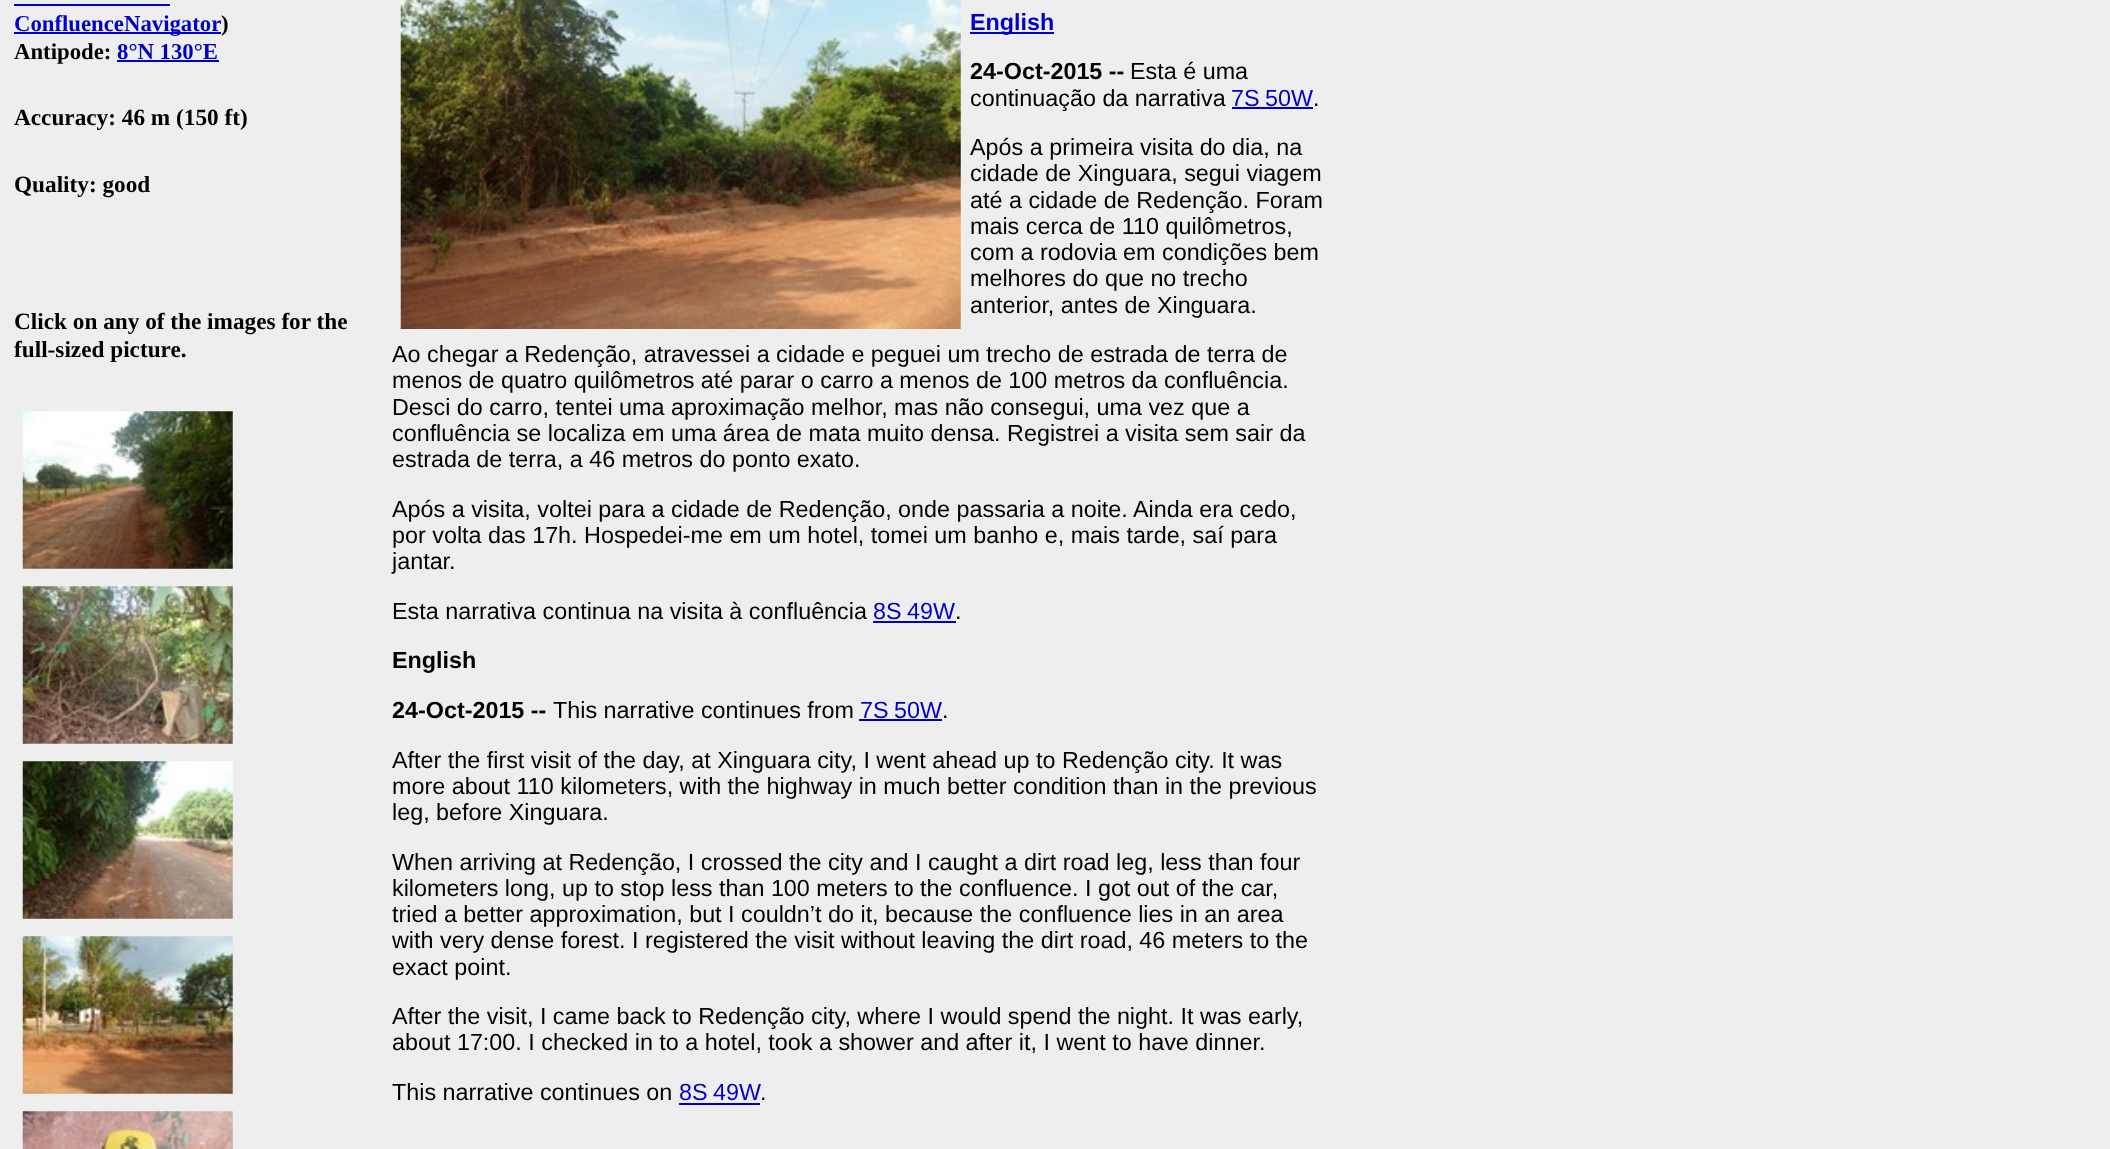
async function draw(canvas) {
  canvas.width = 2110
  canvas.height = 1149
  const ctx = canvas.getContext('2d')
  ctx.miterLimit = 4
  ctx.fontKerning = 'normal'
  async function loadImage(src) {
    const img = new Image()
    img.src = src
    await img.decode()
    return img
  }

  ctx.fillStyle = '#eee'
  ctx.fillRect(0, 0, 2110, 1149)
  ctx.fillStyle = '#00c'
  ctx.fillRect(14, 32, 207, 2)
  ctx.font = 'bold 22.75px Liberation Serif'
  ctx.fillText('ConfluenceNavigator', 14, 31)
  ctx.fillRect(14, 4, 156, 2)
  ctx.fillStyle = '#000'
  ctx.fillText(')', 221, 31)
  ctx.fillText('Antipode:', 14, 59)
  ctx.fillStyle = '#00c'
  ctx.fillText('8°N 130°E', 117, 59)
  ctx.fillRect(117, 60, 102, 2)
  ctx.font = 'bold 23.25px Liberation Serif'
  ctx.fillStyle = '#000'
  ctx.fillText('Accuracy: 46 m (150 ft)', 14, 125)
  ctx.fillText('Quality: good', 14, 192)
  ctx.fillText('Click on any of the images for the', 14, 329)
  ctx.fillText('full-sized picture.', 14, 357)
  ctx.drawImage(await loadImage('image0.png'), 22, 411, 211, 158)
  ctx.drawImage(await loadImage('image1.png'), 22, 586, 211, 158)
  ctx.drawImage(await loadImage('image2.png'), 22, 761, 211, 158)
  ctx.drawImage(await loadImage('image3.png'), 22, 936, 211, 158)
  ctx.drawImage(await loadImage('image4.png'), 22, 1111, 211, 38)
  ctx.drawImage(await loadImage('image5.png'), 400, 0, 561, 329)
  ctx.fillStyle = '#00c'
  ctx.fillRect(970, 32, 84, 2)
  ctx.font = 'bold 23.35px Liberation Sans'
  ctx.fillText('English', 970, 30)
  ctx.fillStyle = '#000'
  ctx.fillText('24-Oct-2015 --', 970, 79)
  ctx.font = '23.35px Liberation Sans'
  ctx.fillText('Esta é uma', 1130, 79)
  ctx.fillText('continuação da narrativa', 970, 106)
  ctx.wordSpacing = '-1px'
  ctx.fillStyle = '#00c'
  ctx.fillText('7S 50W', 1231, 106)
  ctx.fillRect(1232, 107, 81, 2)
  ctx.wordSpacing = '0px'
  ctx.fillStyle = '#000'
  ctx.fillText('.', 1313, 106)
  ctx.fillText('Após a primeira visita do dia, na', 970, 155)
  ctx.fillText('cidade de Xinguara, segui viagem', 970, 181)
  ctx.fillText('até a cidade de Redenção. Foram', 970, 208)
  ctx.fillText('mais cerca de 110 quilômetros,', 970, 234)
  ctx.fillText('com a rodovia em condições bem', 970, 260)
  ctx.fillText('melhores do que no trecho', 970, 286)
  ctx.fillText('anterior, antes de Xinguara.', 970, 313)
  ctx.fillText('Ao chegar a Redenção, atravessei a cidade e peguei um trecho de estrada de terra de', 392, 362)
  ctx.fillText('menos de quatro quilômetros até parar o carro a menos de 100 metros da confluência.', 392, 388)
  ctx.fillText('Desci do carro, tentei uma aproximação melhor, mas não consegui, uma vez que a', 392, 415)
  ctx.fillText('confluência se localiza em uma área de mata muito densa. Registrei a visita sem sair da', 392, 441)
  ctx.fillText('estrada de terra, a 46 metros do ponto exato.', 392, 467)
  ctx.fillText('Após a visita, voltei para a cidade de Redenção, onde passaria a noite. Ainda era cedo,', 392, 517)
  ctx.fillText('por volta das 17h. Hospedei-me em um hotel, tomei um banho e, mais tarde, saí para', 392, 543)
  ctx.fillText('jantar.', 392, 569)
  ctx.fillText('Esta narrativa continua na visita à confluência', 392, 619)
  ctx.wordSpacing = '-1px'
  ctx.fillStyle = '#00c'
  ctx.fillText('8S 49W', 873, 619)
  ctx.fillRect(873, 621, 83, 2)
  ctx.wordSpacing = '0px'
  ctx.fillStyle = '#000'
  ctx.fillText('.', 955, 619)
  ctx.font = 'bold 23.35px Liberation Sans'
  ctx.fillText('English', 392, 668)
  ctx.fillText('24-Oct-2015 --', 392, 718)
  ctx.font = '23.35px Liberation Sans'
  ctx.fillText('This narrative continues from', 553, 718)
  ctx.wordSpacing = '-1px'
  ctx.fillStyle = '#00c'
  ctx.fillText('7S 50W', 860, 718)
  ctx.fillRect(859, 719, 83, 2)
  ctx.wordSpacing = '0px'
  ctx.fillStyle = '#000'
  ctx.fillText('.', 942, 718)
  ctx.fillText('After the first visit of the day, at Xinguara city, I went ahead up to Redenção city. It was', 392, 768)
  ctx.fillText('more about 110 kilometers, with the highway in much better condition than in the previous', 392, 794)
  ctx.fillText('leg, before Xinguara.', 392, 820)
  ctx.fillText('When arriving at Redenção, I crossed the city and I caught a dirt road leg, less than four', 392, 870)
  ctx.fillText('kilometers long, up to stop less than 100 meters to the confluence. I got out of the car,', 392, 896)
  ctx.fillText('tried a better approximation, but I couldn’t do it, because the confluence lies in an area', 392, 922)
  ctx.fillText('with very dense forest. I registered the visit without leaving the dirt road, 46 meters to the', 392, 948)
  ctx.fillText('exact point.', 392, 975)
  ctx.fillText('After the visit, I came back to Redenção city, where I would spend the night. It was early,', 392, 1024)
  ctx.fillText('about 17:00. I checked in to a hotel, took a shower and after it, I went to have dinner.', 392, 1050)
  ctx.fillText('This narrative continues on', 392, 1100)
  ctx.wordSpacing = '-1px'
  ctx.fillStyle = '#00c'
  ctx.fillText('8S 49W', 679, 1100)
  ctx.fillRect(679, 1103, 81, 2)
  ctx.wordSpacing = '0px'
  ctx.fillStyle = '#000'
  ctx.fillText('.', 760, 1100)
}

draw(document.querySelector('canvas'))
